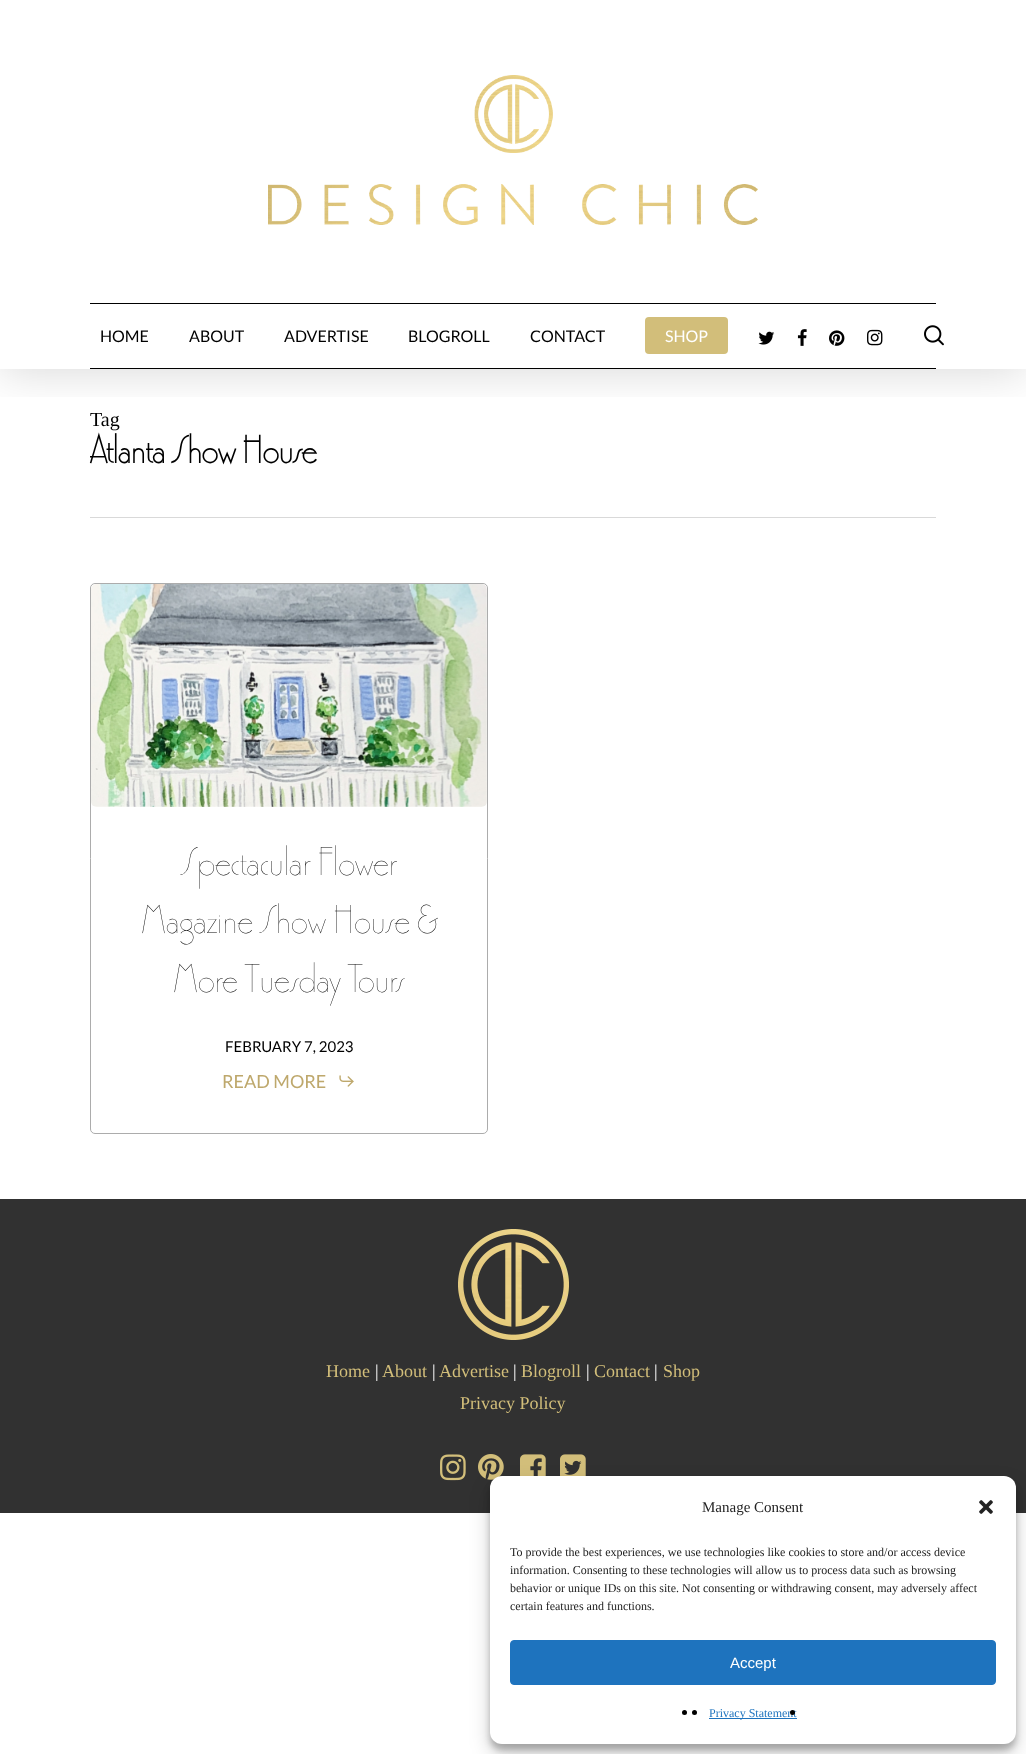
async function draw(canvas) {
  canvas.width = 1026
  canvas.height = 1754
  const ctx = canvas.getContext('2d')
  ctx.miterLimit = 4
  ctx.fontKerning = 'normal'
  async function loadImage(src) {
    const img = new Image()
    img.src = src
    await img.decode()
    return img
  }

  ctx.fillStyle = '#fff'
  ctx.fillRect(0, 0, 1026, 1754)
  ctx.save()
  ctx.beginPath()
  ctx.rect(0, 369, 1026, 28)
  ctx.clip()
  ctx.fillStyle = '#00000026'
  ctx.filter = 'blur(22.5px)'
  ctx.beginPath()
  ctx.rect(0, 3, 1026, 369)
  ctx.fill()
  ctx.filter = 'none'
  ctx.restore()
  ctx.drawImage(await loadImage('image0.png'), 268, 75, 490, 150)
  ctx.fillStyle = '#000'
  ctx.fillRect(90, 303, 846, 1)
  ctx.fillRect(90, 368, 846, 1)
  ctx.font = '16px Lato'
  ctx.fillText('HOME', 100, 342)
  ctx.fillText('ABOUT', 189, 342)
  ctx.fillText('ADVERTISE', 284, 342)
  ctx.fillText('BLOGROLL', 408, 342)
  ctx.fillText('CONTACT', 530, 342)
  ctx.fillStyle = '#d2be7a'
  ctx.beginPath()
  ctx.roundRect(645, 317, 83, 37, 4)
  ctx.fill()
  ctx.fillStyle = '#fff'
  ctx.fillText('SHOP', 665, 342)
  ctx.drawImage(await loadImage('image1.png'), 758, 331, 17, 14)
  ctx.drawImage(await loadImage('image2.png'), 797, 329, 10, 17)
  ctx.drawImage(await loadImage('image3.png'), 829, 330, 16, 16)
  ctx.drawImage(await loadImage('image4.png'), 867, 329, 16, 17)
  ctx.drawImage(await loadImage('image5.png'), 924, 325, 20, 21)
  ctx.fillStyle = '#d9d9d9'
  ctx.fillRect(90, 517, 846, 1)
  ctx.font = '20px Liberation Serif'
  ctx.fillStyle = '#000'
  ctx.fillText('Tag', 90, 426)
  ctx.font = 'bold 40.5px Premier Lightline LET'
  ctx.fillText('Atlanta Show House', 90, 463)
  ctx.beginPath()
  ctx.roundRect(90.5, 583.5, 397, 550, 4.5)
  ctx.strokeStyle = '#acacac'
  ctx.stroke()
  ctx.drawImage(await loadImage('image6.png'), 91, 584, 396, 223)
  ctx.font = '300 42px Premier Lightline LET'
  ctx.fillText('Spectacular Flower', 181, 875)
  ctx.fillText('Magazine Show House &', 141, 933)
  ctx.fillText('More Tuesday Tours', 173, 992)
  ctx.font = '15px Lato'
  ctx.fillText('FEBRUARY 7, 2023', 225, 1052)
  ctx.font = '18px Lato'
  ctx.fillStyle = '#bea86c'
  ctx.fillText('READ MORE', 222, 1088)
  ctx.drawImage(await loadImage('image7.png'), 339, 1075, 15, 12)
  ctx.fillStyle = '#313131'
  ctx.fillRect(0, 1199, 1026, 314)
  ctx.drawImage(await loadImage('image8.png'), 458, 1229, 111, 111)
  ctx.font = '18px Liberation Serif'
  ctx.fillStyle = '#d2be7a'
  ctx.fillText('Home', 326, 1377)
  ctx.fillStyle = '#fff'
  ctx.fillText('|', 375, 1377)
  ctx.fillStyle = '#d2be7a'
  ctx.fillText('About', 382, 1377)
  ctx.fillStyle = '#fff'
  ctx.fillText('|', 432, 1377)
  ctx.fillStyle = '#d2be7a'
  ctx.fillText('Advertise', 439, 1377)
  ctx.fillStyle = '#fff'
  ctx.fillText('|', 513, 1377)
  ctx.fillStyle = '#d2be7a'
  ctx.fillText('Blogroll', 521, 1377)
  ctx.fillStyle = '#fff'
  ctx.fillText('|', 586, 1377)
  ctx.fillStyle = '#d2be7a'
  ctx.fillText('Contact', 594, 1377)
  ctx.fillStyle = '#fff'
  ctx.fillText('|', 654, 1377)
  ctx.fillStyle = '#d2be7a'
  ctx.fillText('Shop', 663, 1377)
  ctx.fillText('Privacy Policy', 460, 1409)
  ctx.drawImage(await loadImage('image9.png'), 440, 1454, 26, 27)
  ctx.drawImage(await loadImage('image10.png'), 478, 1454, 26, 26)
  ctx.drawImage(await loadImage('image11.png'), 520, 1454, 26, 22)
  ctx.drawImage(await loadImage('image12.png'), 560, 1454, 26, 22)
  ctx.fillStyle = '#0000003b'
  ctx.filter = 'blur(3px)'
  ctx.beginPath()
  ctx.roundRect(490, 1482, 526, 268, 12)
  ctx.fill()
  ctx.filter = 'none'
  ctx.fillStyle = '#00000030'
  ctx.filter = 'blur(10px)'
  ctx.beginPath()
  ctx.roundRect(490, 1486, 526, 268, 12)
  ctx.fill()
  ctx.filter = 'none'
  ctx.fillStyle = '#fff'
  ctx.beginPath()
  ctx.roundRect(490, 1476, 526, 268, 12)
  ctx.fill()
  ctx.font = '15px Liberation Serif'
  ctx.fillStyle = '#222'
  ctx.fillText('Manage Consent', 702, 1512)
  ctx.drawImage(await loadImage('image13.png'), 979, 1500, 14, 14)
  ctx.font = '12px Liberation Serif'
  ctx.fillText('To provide the best experiences, we use technologies like cookies to store and/or access device', 510, 1556)
  ctx.fillText('information. Consenting to these technologies will allow us to process data such as browsing', 510, 1574)
  ctx.fillText('behavior or unique IDs on this site. Not consenting or withdrawing consent, may adversely affect', 510, 1592)
  ctx.fillText('certain features and functions.', 510, 1610)
  ctx.fillStyle = '#1e73be'
  ctx.beginPath()
  ctx.roundRect(510.5, 1640.5, 485, 44, 3.5)
  ctx.fill()
  ctx.strokeStyle = '#1e73be'
  ctx.stroke()
  ctx.font = '15px Liberation Sans'
  ctx.fillStyle = '#fff'
  ctx.fillText('Accept', 730, 1668)
  ctx.fillStyle = '#000'
  ctx.beginPath()
  ctx.arc(684.5, 1712.5, 2.5, 0, 2 * Math.PI)
  ctx.fill()
  ctx.beginPath()
  ctx.arc(694.5, 1712.5, 2.5, 0, 2 * Math.PI)
  ctx.fill()
  ctx.fillStyle = '#1e73be'
  ctx.fillRect(709, 1718, 88, 1)
  ctx.font = '12px Liberation Serif'
  ctx.fillText('Privacy Statement', 709, 1717)
  ctx.fillStyle = '#000'
  ctx.beginPath()
  ctx.arc(792.5, 1712.5, 2.5, 0, 2 * Math.PI)
  ctx.fill()
}

draw(document.querySelector('canvas'))
